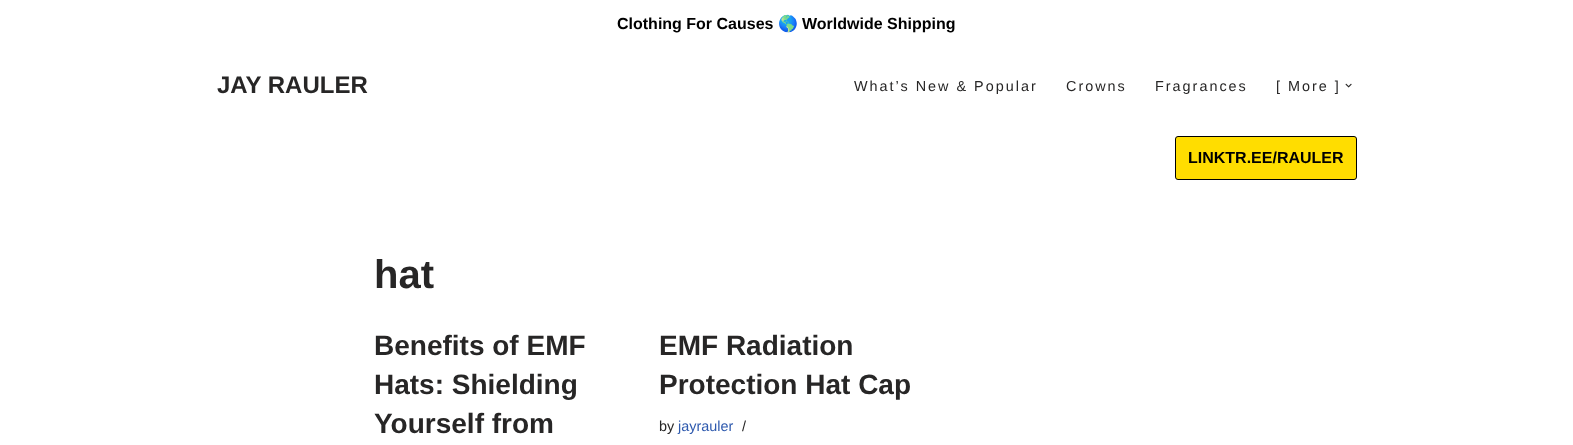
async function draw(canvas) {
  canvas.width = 1573
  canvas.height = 445
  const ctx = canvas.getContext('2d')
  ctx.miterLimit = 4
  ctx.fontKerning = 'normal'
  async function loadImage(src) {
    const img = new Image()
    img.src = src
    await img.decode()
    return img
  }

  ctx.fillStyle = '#fff'
  ctx.fillRect(0, 0, 1573, 445)
  ctx.font = 'bold 16px Liberation Sans'
  ctx.fillStyle = '#000'
  ctx.fillText('Clothing For Causes', 617, 29)
  ctx.font = 'bold 16px Noto Color Emoji'
  ctx.fillText('🌎', 778, 29)
  ctx.font = 'bold 16px Liberation Sans'
  ctx.fillText('Worldwide Shipping', 802, 29)
  ctx.font = 'bold 24px Liberation Sans'
  ctx.fillStyle = '#272626'
  ctx.fillText('JAY RAULER', 217, 93)
  ctx.letterSpacing = '2px'
  ctx.font = '14.4px Liberation Sans'
  ctx.fillText('What’s New & Popular', 854, 91)
  ctx.fillText('Crowns', 1066, 91)
  ctx.fillText('Fragrances', 1155, 91)
  ctx.fillText('[ More ]', 1276, 91)
  ctx.drawImage(await loadImage('image0.png'), 1345, 83, 7, 5)
  ctx.fillStyle = '#fd0'
  ctx.beginPath()
  ctx.roundRect(1175.5, 136.5, 181, 43, 2.5)
  ctx.fill()
  ctx.strokeStyle = '#000'
  ctx.stroke()
  ctx.letterSpacing = '0px'
  ctx.font = 'bold 16px Liberation Sans'
  ctx.fillStyle = '#000'
  ctx.fillText('LINKTR.EE/RAULER', 1188, 163)
  ctx.font = 'bold 40px Liberation Sans'
  ctx.fillStyle = '#272626'
  ctx.fillText('hat', 374, 288)
  ctx.font = 'bold 28px Liberation Sans'
  ctx.fillText('Benefits of EMF', 374, 355)
  ctx.fillText('Hats: Shielding', 374, 394)
  ctx.fillText('Yourself from', 374, 433)
  ctx.fillText('EMF Radiation', 659, 355)
  ctx.fillText('Protection Hat Cap', 659, 394)
  ctx.font = '14.4px Liberation Sans'
  ctx.fillText('by', 659, 431)
  ctx.fillStyle = '#2f5aae'
  ctx.fillText('jayrauler', 678, 431)
  ctx.fillStyle = '#272626'
  ctx.fillText('/', 742, 431)
}

draw(document.querySelector('canvas'))
